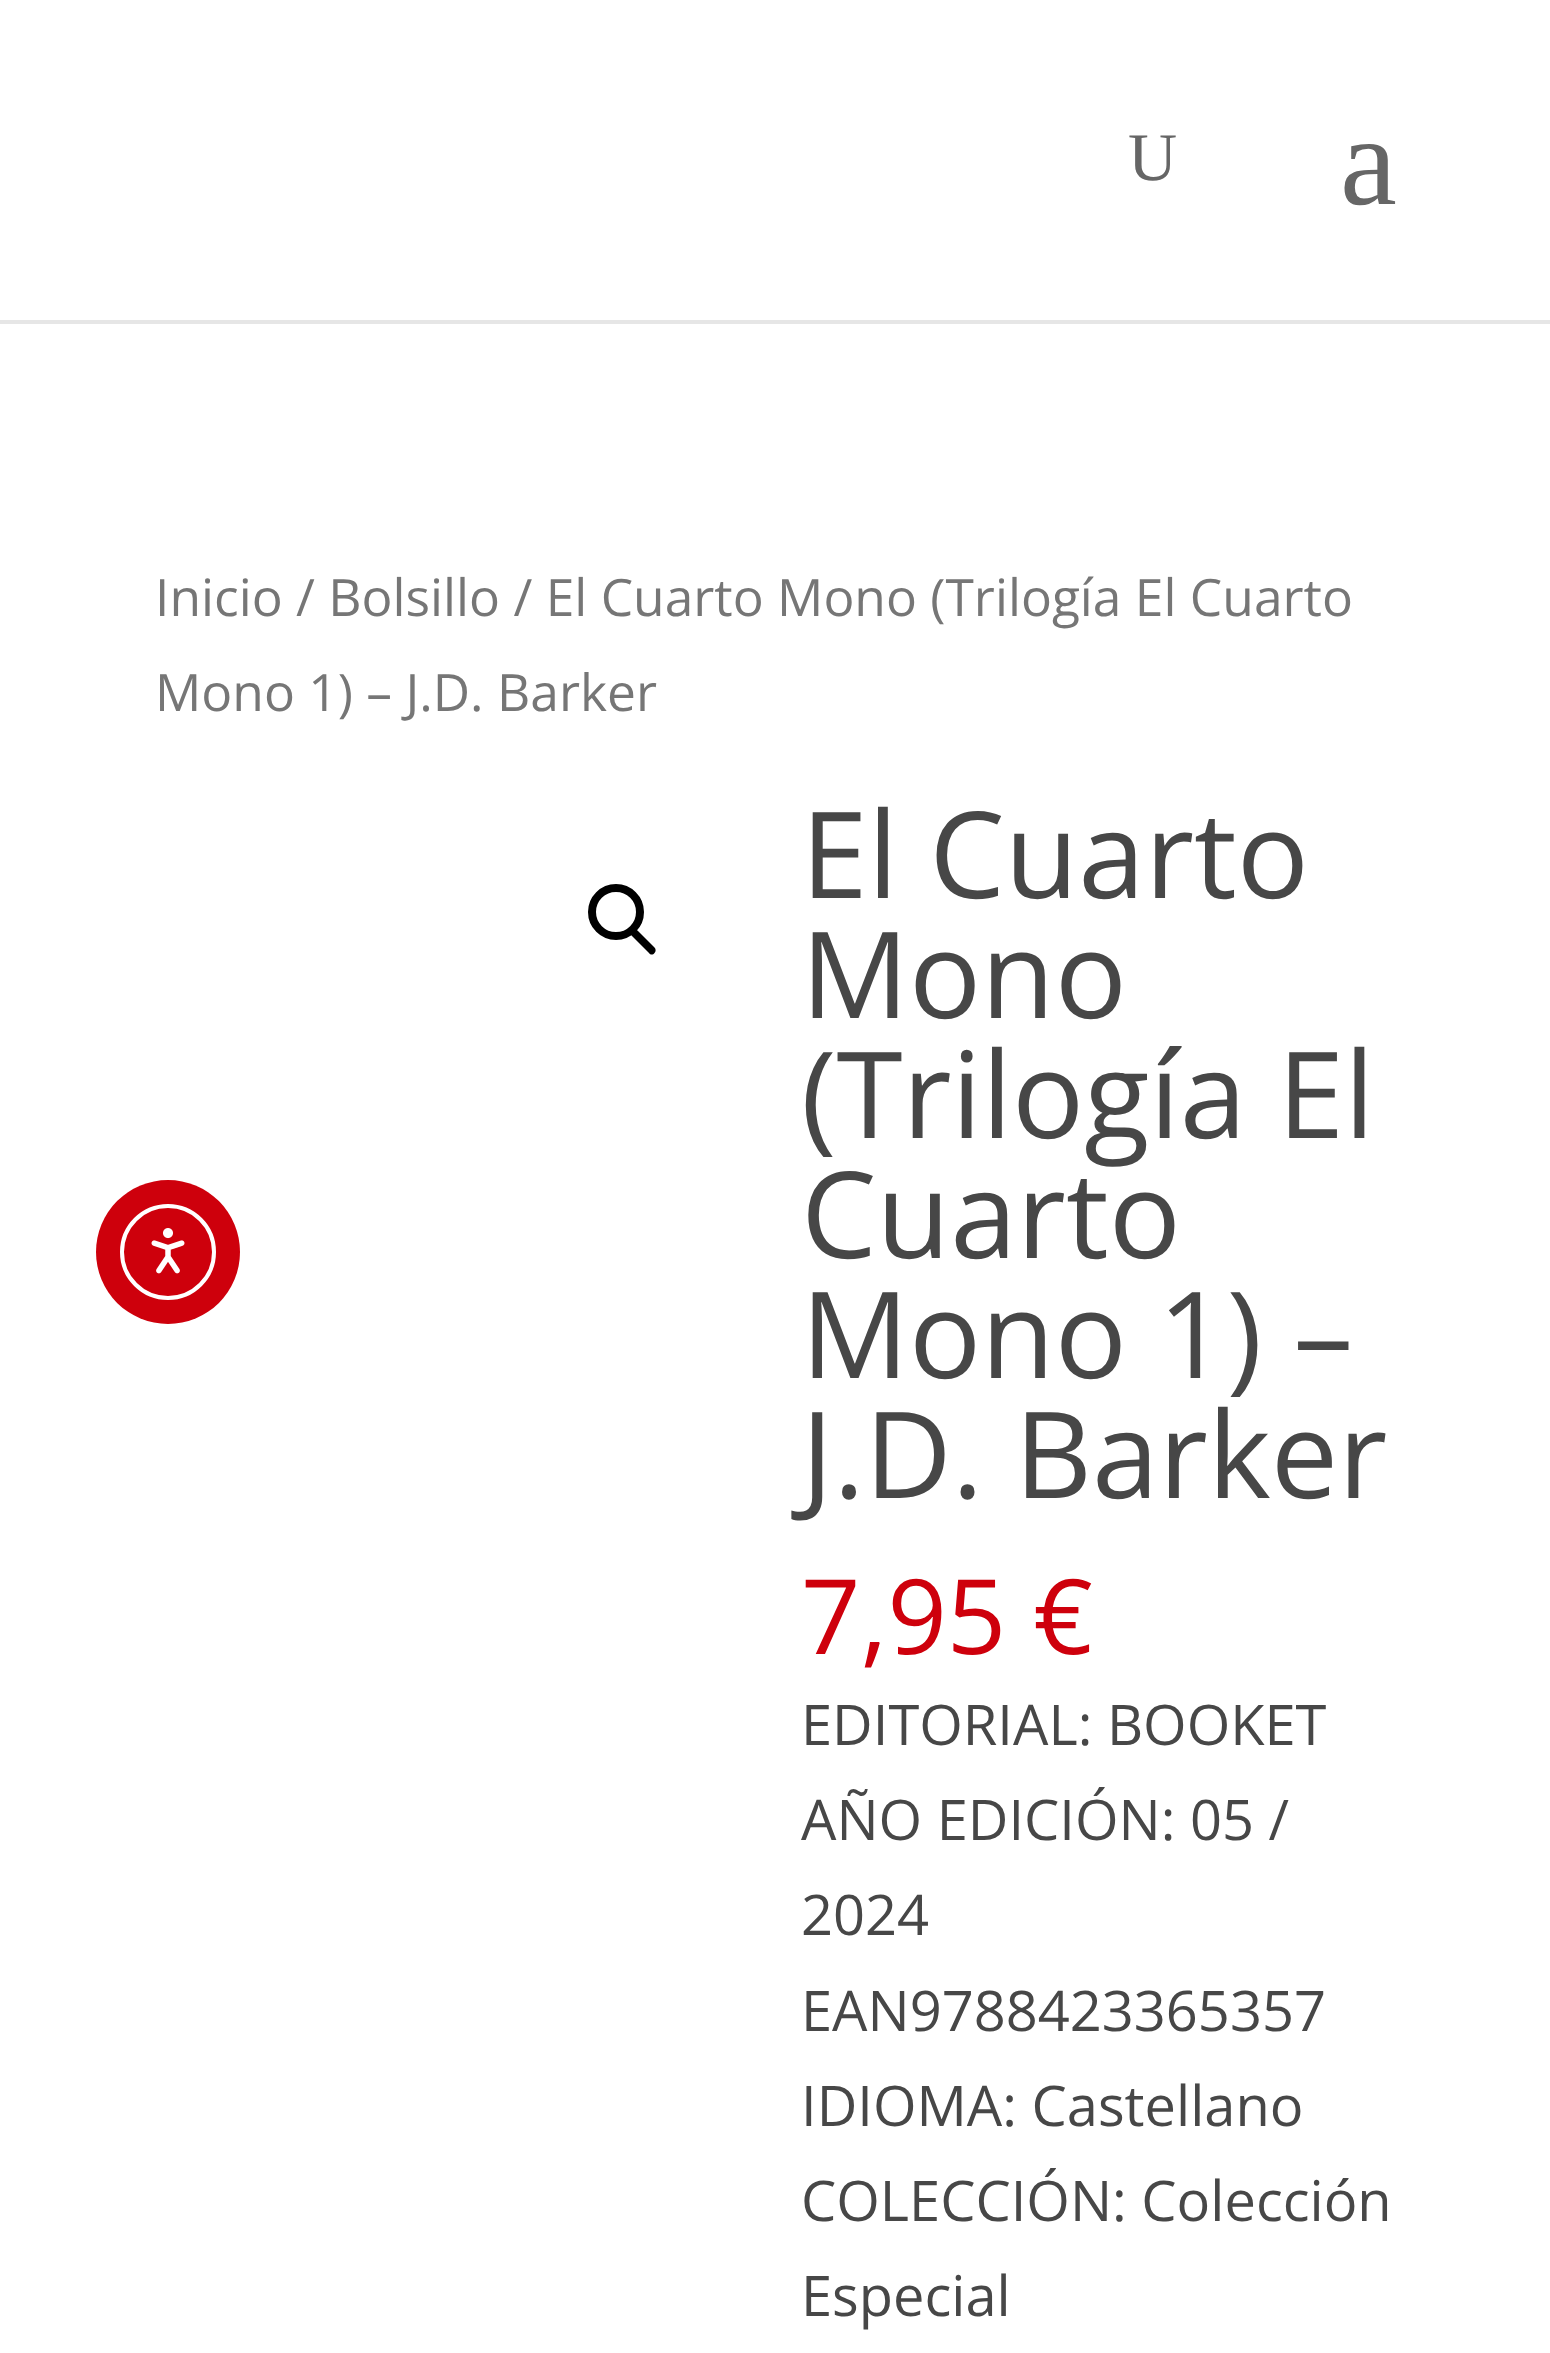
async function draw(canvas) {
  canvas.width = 1550
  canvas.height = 2353
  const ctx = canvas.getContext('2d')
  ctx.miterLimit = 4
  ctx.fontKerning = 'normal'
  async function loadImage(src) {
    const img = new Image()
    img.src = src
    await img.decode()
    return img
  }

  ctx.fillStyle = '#fff'
  ctx.fillRect(0, 0, 1550, 2353)
  ctx.fillStyle = '#e6e6e6'
  ctx.fillRect(0, 320, 1550, 4)
  ctx.font = '68px Liberation Serif'
  ctx.fillStyle = '#666'
  ctx.fillText('U', 1128, 180)
  ctx.font = '128px Liberation Serif'
  ctx.fillText('a', 1340, 204)
  ctx.font = '51.5px Open Sans'
  ctx.fillStyle = '#767676'
  ctx.fillText('Inicio / Bolsillo / El Cuarto Mono (Trilogía El Cuarto', 155, 616)
  ctx.fillText('Mono 1) – J.D. Barker', 155, 711)
  ctx.beginPath()
  ctx.arc(616, 912, 24, 0, 2 * Math.PI)
  ctx.strokeStyle = '#000'
  ctx.lineWidth = 8
  ctx.stroke()
  ctx.fillStyle = '#000'
  ctx.beginPath()
  ctx.moveTo(632, 930.5)
  ctx.bezierCurveTo(633.5, 929, 636, 929, 637.5, 930.5)
  ctx.lineTo(654.5, 947.5)
  ctx.bezierCurveTo(656, 949, 656, 951.5, 654.5, 953)
  ctx.bezierCurveTo(653, 955, 650.5, 955, 649, 953)
  ctx.lineTo(632, 936)
  ctx.bezierCurveTo(630, 934.5, 630, 932, 632, 930.5)
  ctx.closePath()
  ctx.fill()
  ctx.font = '120px Open Sans'
  ctx.fillStyle = '#474747'
  ctx.fillText('El Cuarto', 801, 898)
  ctx.fillText('Mono', 801, 1018)
  ctx.fillText('(Trilogía El', 801, 1138)
  ctx.fillText('Cuarto', 801, 1258)
  ctx.fillText('Mono 1) –', 801, 1378)
  ctx.fillText('J.D. Barker', 801, 1498)
  ctx.font = '104px Open Sans'
  ctx.fillStyle = '#ce000c'
  ctx.fillText('7,95 €', 801, 1654)
  ctx.font = '56px Open Sans'
  ctx.fillStyle = '#474747'
  ctx.fillText('EDITORIAL: BOOKET', 801, 1745)
  ctx.fillText('AÑO EDICIÓN: 05 /', 801, 1840)
  ctx.fillText('2024', 801, 1935)
  ctx.fillText('EAN9788423365357', 801, 2031)
  ctx.fillText('IDIOMA: Castellano', 801, 2126)
  ctx.fillText('COLECCIÓN: Colección', 801, 2221)
  ctx.fillText('Especial', 801, 2316)
  ctx.fillStyle = '#ce000c'
  ctx.beginPath()
  ctx.arc(168, 1252, 72, 0, 2 * Math.PI)
  ctx.fill()
  ctx.beginPath()
  ctx.arc(168, 1252, 46, 0, 2 * Math.PI)
  ctx.strokeStyle = '#fff'
  ctx.lineWidth = 4
  ctx.stroke()
  ctx.drawImage(await loadImage('image0.png'), 151, 1228, 34, 46)
}

draw(document.querySelector('canvas'))
